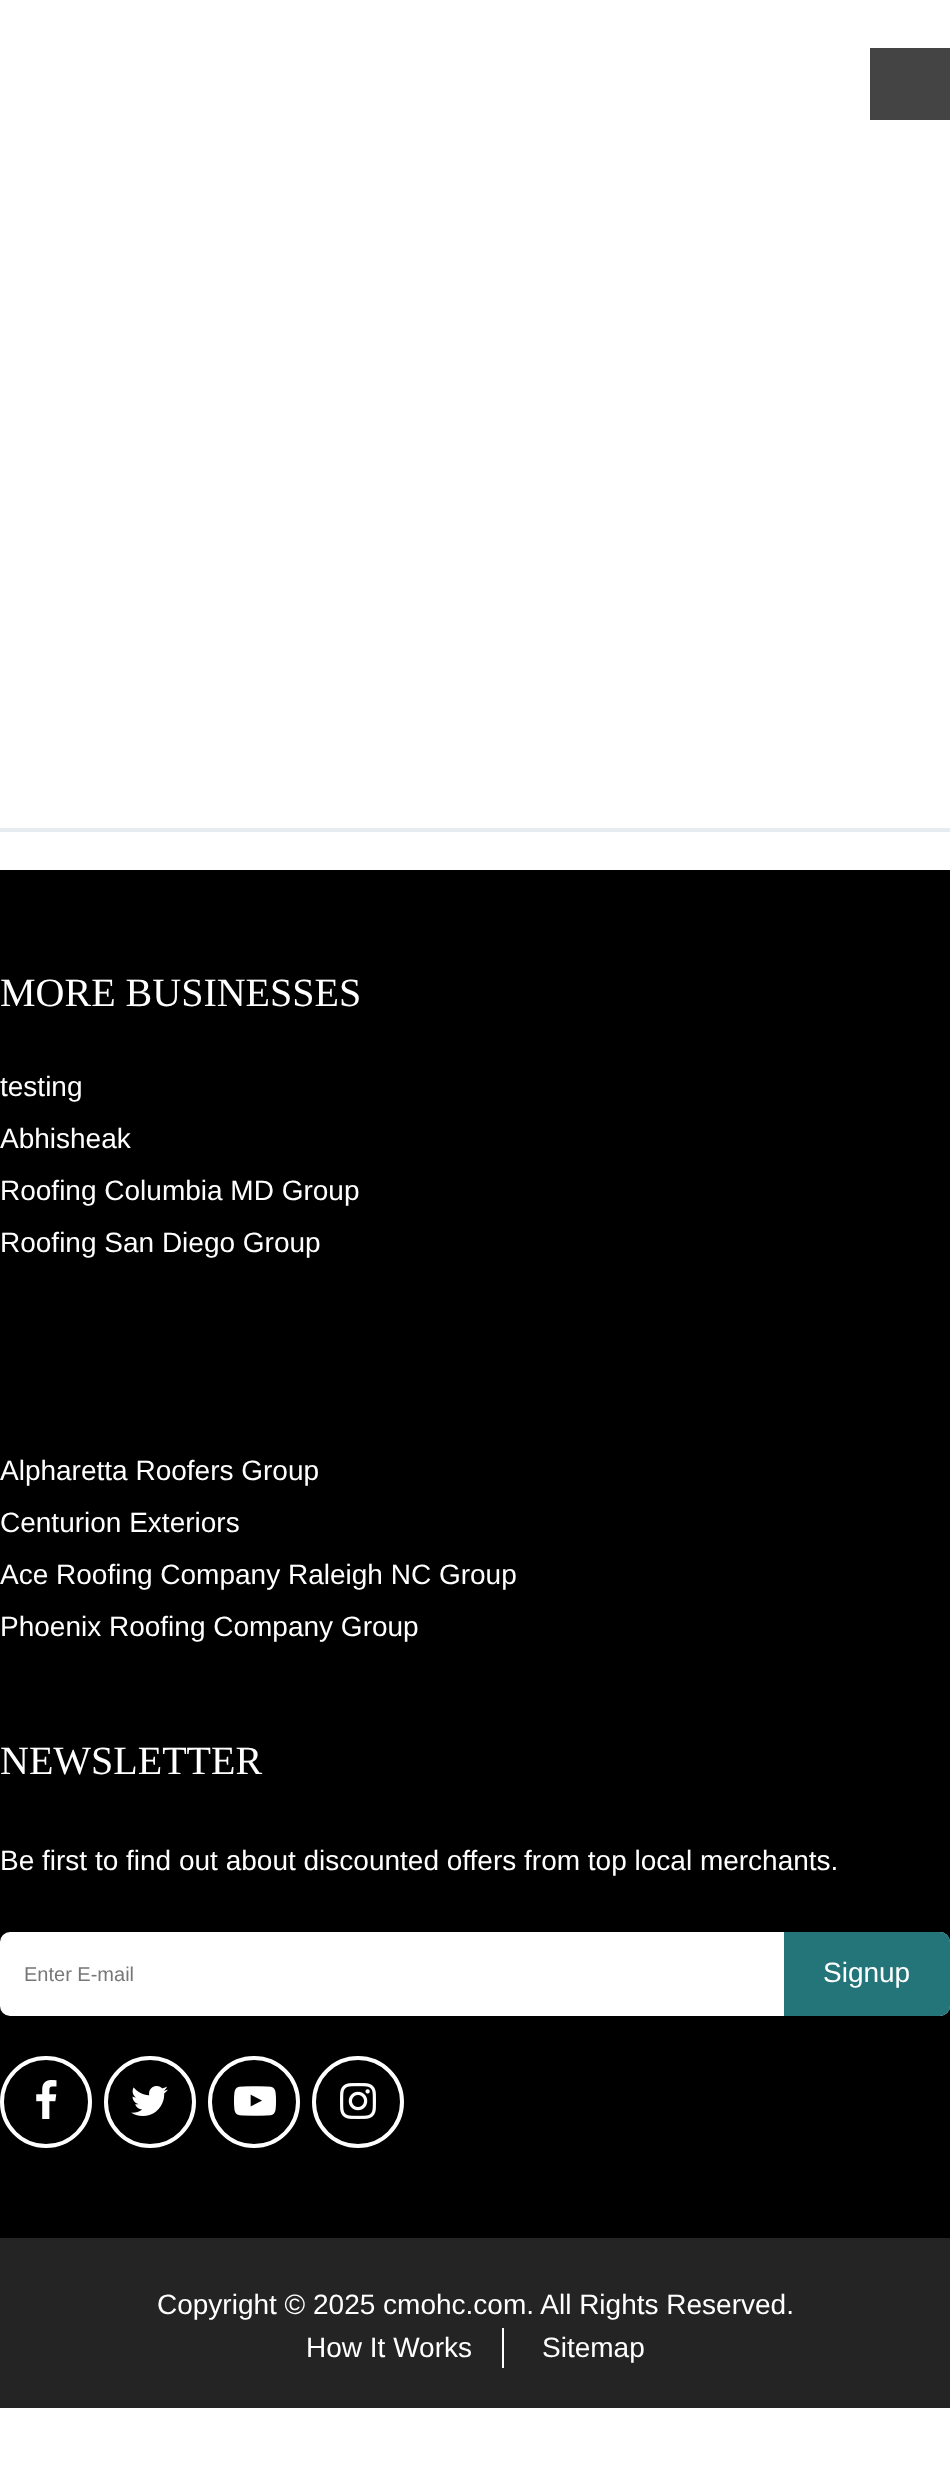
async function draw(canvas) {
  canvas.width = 950
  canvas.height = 2489
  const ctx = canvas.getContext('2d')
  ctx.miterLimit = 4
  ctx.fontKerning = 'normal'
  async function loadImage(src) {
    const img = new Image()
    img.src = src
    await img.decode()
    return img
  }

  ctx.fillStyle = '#fff'
  ctx.fillRect(0, 0, 950, 2489)
  ctx.fillStyle = '#444'
  ctx.fillRect(870, 48, 80, 72)
  ctx.fillStyle = '#e7ecf1'
  ctx.fillRect(0, 828, 950, 4)
  ctx.fillStyle = '#000'
  ctx.fillRect(0, 870, 950, 1368)
  ctx.font = '40px Liberation Serif'
  ctx.fillStyle = '#fff'
  ctx.fillText('MORE BUSINESSES', 0, 1006)
  ctx.font = '28px Liberation Sans'
  ctx.fillText('testing', 0, 1096)
  ctx.fillText('Abhisheak', 0, 1148)
  ctx.fillText('Roofing Columbia MD Group', 0, 1200)
  ctx.fillText('Roofing San Diego Group', 0, 1252)
  ctx.fillText('Alpharetta Roofers Group', 0, 1480)
  ctx.fillText('Centurion Exteriors', 0, 1532)
  ctx.fillText('Ace Roofing Company Raleigh NC Group', 0, 1584)
  ctx.fillText('Phoenix Roofing Company Group', 0, 1636)
  ctx.font = '40px Liberation Serif'
  ctx.fillText('NEWSLETTER', 0, 1774)
  ctx.font = '28px Liberation Sans'
  ctx.fillText('Be first to find out about discounted offers from top local merchants.', 0, 1870)
  ctx.beginPath()
  ctx.roundRect(0, 1932, 950, 84, 10)
  ctx.fill()
  ctx.font = '20px Liberation Sans'
  ctx.fillStyle = '#777'
  ctx.fillText('Enter E-mail', 24, 1981)
  ctx.fillStyle = '#237579'
  ctx.beginPath()
  ctx.roundRect(784, 1932, 166, 84, [0, 10, 10, 0])
  ctx.fill()
  ctx.font = '28px Liberation Sans'
  ctx.fillStyle = '#fff'
  ctx.fillText('Signup', 823, 1982)
  ctx.beginPath()
  ctx.arc(46, 2102, 44, 0, 2 * Math.PI)
  ctx.strokeStyle = '#fff'
  ctx.lineWidth = 4
  ctx.stroke()
  ctx.drawImage(await loadImage('image0.png'), 36, 2080, 21, 39)
  ctx.beginPath()
  ctx.arc(150, 2102, 44, 0, 2 * Math.PI)
  ctx.stroke()
  ctx.drawImage(await loadImage('image1.png'), 131, 2086, 37, 30)
  ctx.beginPath()
  ctx.arc(254, 2102, 44, 0, 2 * Math.PI)
  ctx.stroke()
  ctx.drawImage(await loadImage('image2.png'), 234, 2086, 42, 30)
  ctx.beginPath()
  ctx.arc(358, 2102, 44, 0, 2 * Math.PI)
  ctx.stroke()
  ctx.drawImage(await loadImage('image3.png'), 340, 2083, 36, 36)
  ctx.fillStyle = '#242424'
  ctx.fillRect(0, 2238, 950, 170)
  ctx.fillStyle = '#fff'
  ctx.fillText('Copyright © 2025 cmohc.com. All Rights Reserved.', 157, 2314)
  ctx.fillRect(502, 2328, 2, 40)
  ctx.fillText('How It Works', 306, 2357)
  ctx.fillText('Sitemap', 542, 2357)
}

draw(document.querySelector('canvas'))
